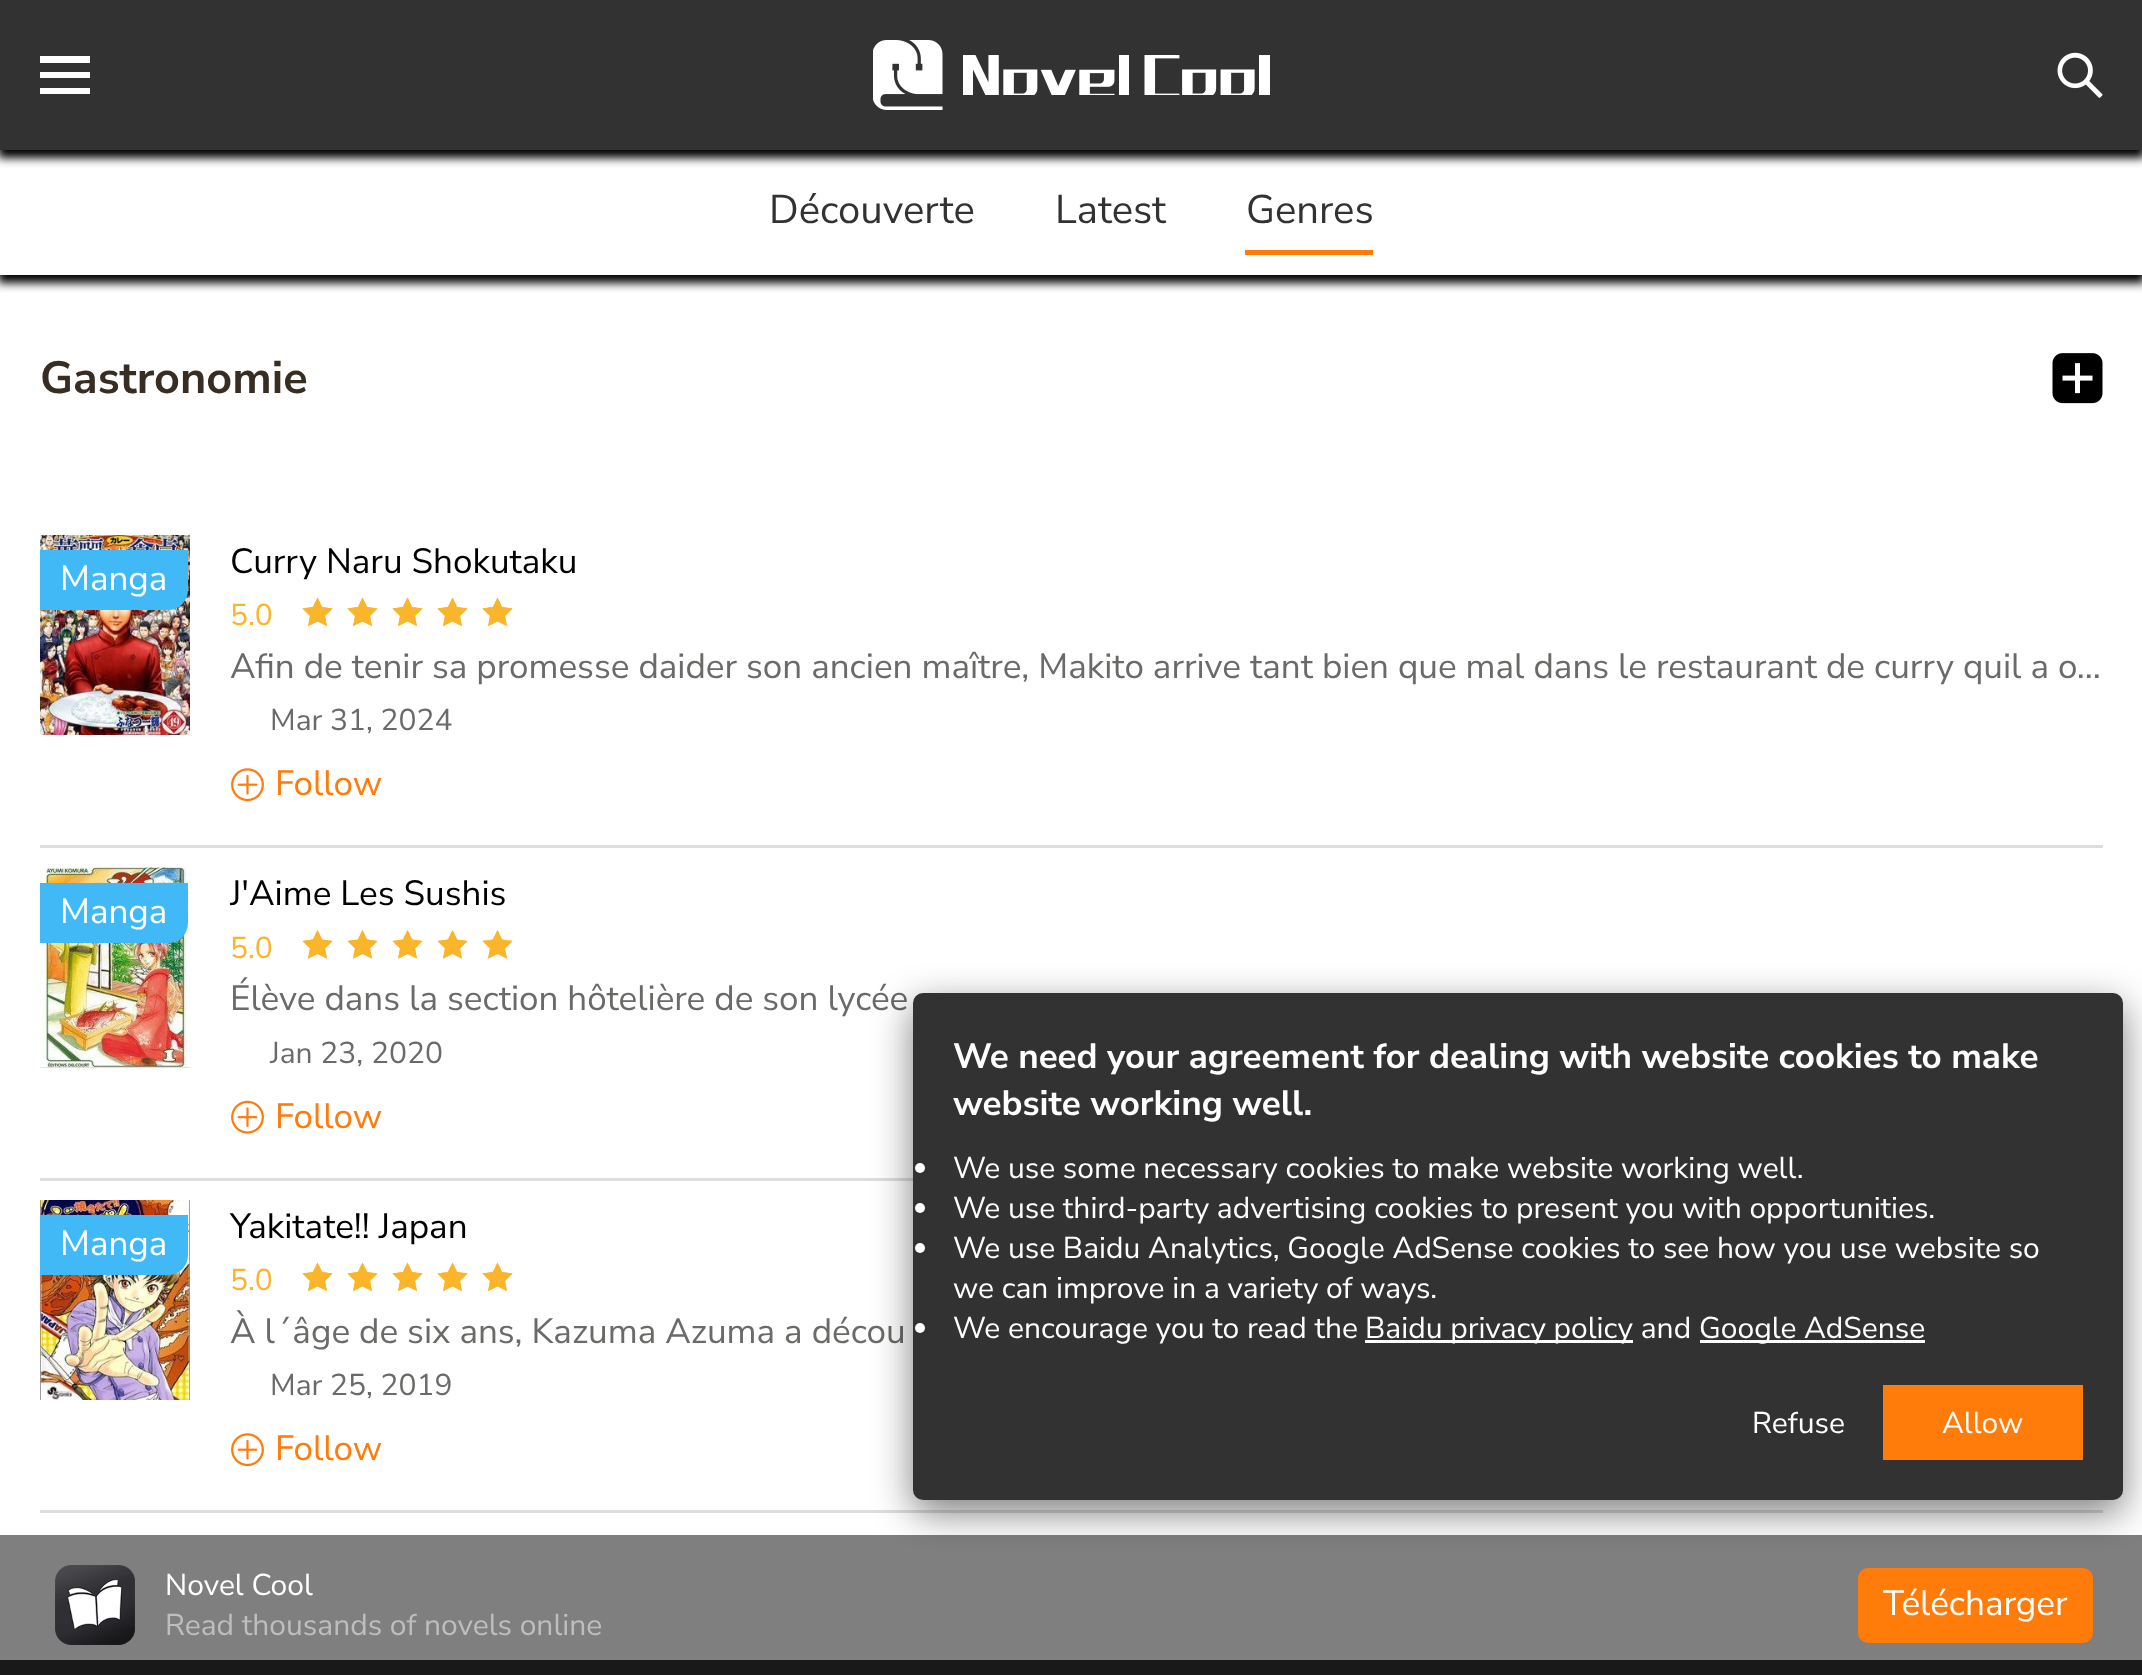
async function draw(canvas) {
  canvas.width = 2142
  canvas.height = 1675
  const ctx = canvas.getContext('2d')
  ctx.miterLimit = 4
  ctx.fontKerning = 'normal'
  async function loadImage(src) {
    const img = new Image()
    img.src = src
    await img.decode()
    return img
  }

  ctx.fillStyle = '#fff'
  ctx.fillRect(0, 0, 2142, 1675)
  ctx.fillStyle = '#000'
  ctx.filter = 'blur(5px)'
  ctx.beginPath()
  ctx.rect(-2, 3, 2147, 155)
  ctx.fill()
  ctx.filter = 'none'
  ctx.save()
  ctx.beginPath()
  ctx.rect(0, 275, 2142, 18)
  ctx.clip()
  ctx.filter = 'blur(5px)'
  ctx.beginPath()
  ctx.rect(-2, 153, 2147, 130)
  ctx.fill()
  ctx.filter = 'none'
  ctx.restore()
  ctx.fillStyle = '#323232'
  ctx.fillRect(0, 0, 2142, 150)
  ctx.fillStyle = '#fff'
  ctx.beginPath()
  ctx.moveTo(90, 63)
  ctx.lineTo(40, 63)
  ctx.lineTo(40, 56)
  ctx.lineTo(90, 56)
  ctx.closePath()
  ctx.moveTo(90, 72)
  ctx.lineTo(40, 72)
  ctx.lineTo(40, 78)
  ctx.lineTo(90, 78)
  ctx.closePath()
  ctx.moveTo(90, 88)
  ctx.lineTo(40, 88)
  ctx.lineTo(40, 94)
  ctx.lineTo(90, 94)
  ctx.closePath()
  ctx.fill()
  ctx.drawImage(await loadImage('image0.png'), 873, 40, 70, 70)
  ctx.drawImage(await loadImage('image1.png'), 963, 55, 307, 40)
  ctx.drawImage(await loadImage('image2.png'), 2057, 52, 46, 46)
  ctx.font = '40px Nunito Sans'
  ctx.fillStyle = '#323232'
  ctx.fillText('Découverte', 769, 223)
  ctx.fillText('Latest', 1055, 223)
  ctx.fillStyle = '#ff7b0a'
  ctx.fillRect(1245, 250, 128, 5)
  ctx.fillStyle = '#323232'
  ctx.fillText('Genres', 1246, 223)
  ctx.font = 'bold 45px Nunito Sans'
  ctx.fillStyle = '#382d23'
  ctx.fillText('Gastronomie', 40, 393)
  ctx.drawImage(await loadImage('image3.png'), 2052, 353, 51, 51)
  ctx.fillStyle = '#ddd'
  ctx.fillRect(40, 845, 2063, 3)
  ctx.drawImage(await loadImage('image4.png'), 40, 535, 150, 200)
  ctx.fillStyle = '#41b9f6'
  ctx.beginPath()
  ctx.roundRect(40, 550, 148, 60, [0, 0, 20, 0])
  ctx.fill()
  ctx.font = '35px Nunito Sans'
  ctx.fillStyle = '#fff'
  ctx.fillText('Manga', 60, 590)
  ctx.fillStyle = '#000'
  ctx.fillText('Curry Naru Shokutaku', 230, 573)
  ctx.font = '30px Nunito Sans'
  ctx.fillStyle = '#fab52b'
  ctx.fillText('5.0', 230, 625)
  ctx.drawImage(await loadImage('image5.png'), 302, 597, 31, 29)
  ctx.beginPath()
  ctx.moveTo(317.5, 597.5)
  ctx.lineTo(313, 607)
  ctx.lineTo(302.5, 608.5)
  ctx.lineTo(310, 616)
  ctx.lineTo(308, 626)
  ctx.lineTo(317.5, 621.5)
  ctx.lineTo(327, 626)
  ctx.lineTo(325, 616)
  ctx.lineTo(332.5, 608.5)
  ctx.lineTo(322, 607)
  ctx.closePath()
  ctx.fill()
  ctx.drawImage(await loadImage('image5.png'), 347, 597, 31, 29)
  ctx.beginPath()
  ctx.moveTo(362.5, 597.5)
  ctx.lineTo(358, 607)
  ctx.lineTo(347.5, 608.5)
  ctx.lineTo(355, 616)
  ctx.lineTo(353, 626)
  ctx.lineTo(362.5, 621.5)
  ctx.lineTo(372, 626)
  ctx.lineTo(370, 616)
  ctx.lineTo(377.5, 608.5)
  ctx.lineTo(367, 607)
  ctx.closePath()
  ctx.fill()
  ctx.drawImage(await loadImage('image5.png'), 392, 597, 31, 29)
  ctx.beginPath()
  ctx.moveTo(407.5, 597.5)
  ctx.lineTo(403, 607)
  ctx.lineTo(392.5, 608.5)
  ctx.lineTo(400, 616)
  ctx.lineTo(398, 626)
  ctx.lineTo(407.5, 621.5)
  ctx.lineTo(417, 626)
  ctx.lineTo(415, 616)
  ctx.lineTo(422.5, 608.5)
  ctx.lineTo(412, 607)
  ctx.closePath()
  ctx.fill()
  ctx.drawImage(await loadImage('image5.png'), 437, 597, 31, 29)
  ctx.beginPath()
  ctx.moveTo(452.5, 597.5)
  ctx.lineTo(448, 607)
  ctx.lineTo(437.5, 608.5)
  ctx.lineTo(445, 616)
  ctx.lineTo(443, 626)
  ctx.lineTo(452.5, 621.5)
  ctx.lineTo(462, 626)
  ctx.lineTo(460, 616)
  ctx.lineTo(467.5, 608.5)
  ctx.lineTo(457, 607)
  ctx.closePath()
  ctx.fill()
  ctx.drawImage(await loadImage('image5.png'), 482, 597, 31, 29)
  ctx.beginPath()
  ctx.moveTo(497.5, 597.5)
  ctx.lineTo(493, 607)
  ctx.lineTo(482.5, 608.5)
  ctx.lineTo(490, 616)
  ctx.lineTo(488, 626)
  ctx.lineTo(497.5, 621.5)
  ctx.lineTo(507, 626)
  ctx.lineTo(505, 616)
  ctx.lineTo(512.5, 608.5)
  ctx.lineTo(502, 607)
  ctx.closePath()
  ctx.fill()
  ctx.font = '35px Nunito Sans'
  ctx.fillStyle = '#6a6b68'
  ctx.fillText('Afin de tenir sa promesse daider son ancien maître, Makito arrive tant bien que mal dans le restaurant de curry quil a o…', 230, 678)
  ctx.font = '30px Nunito Sans'
  ctx.fillText('Mar 31, 2024', 270, 730)
  ctx.drawImage(await loadImage('image6.png'), 231, 768, 33, 34)
  ctx.font = '35px Nunito Sans'
  ctx.fillStyle = '#ff7b0a'
  ctx.fillText('Follow', 275, 795)
  ctx.fillStyle = '#ddd'
  ctx.fillRect(40, 1178, 873, 3)
  ctx.fillStyle = '#cecac8'
  ctx.fillRect(40, 1067, 150, 1)
  ctx.drawImage(await loadImage('image7.png'), 40, 867, 150, 201)
  ctx.fillStyle = '#41b9f6'
  ctx.beginPath()
  ctx.roundRect(40, 883, 148, 60, [0, 0, 20, 0])
  ctx.fill()
  ctx.fillStyle = '#fff'
  ctx.fillText('Manga', 60, 923)
  ctx.save()
  ctx.beginPath()
  ctx.rect(230, 868, 1873, 55)
  ctx.clip()
  ctx.fillStyle = '#000'
  ctx.fillText('J\'Aime Les Sushis', 230, 905)
  ctx.restore()
  ctx.font = '30px Nunito Sans'
  ctx.fillStyle = '#fab52b'
  ctx.fillText('5.0', 230, 958)
  ctx.drawImage(await loadImage('image8.png'), 302, 930, 31, 29)
  ctx.beginPath()
  ctx.moveTo(317.5, 930)
  ctx.lineTo(313, 939.5)
  ctx.lineTo(302.5, 941)
  ctx.lineTo(310, 948.5)
  ctx.lineTo(308, 958.5)
  ctx.lineTo(317.5, 954)
  ctx.lineTo(327, 958.5)
  ctx.lineTo(325, 948.5)
  ctx.lineTo(332.5, 941)
  ctx.lineTo(322, 939.5)
  ctx.closePath()
  ctx.fill()
  ctx.drawImage(await loadImage('image8.png'), 347, 930, 31, 29)
  ctx.beginPath()
  ctx.moveTo(362.5, 930)
  ctx.lineTo(358, 939.5)
  ctx.lineTo(347.5, 941)
  ctx.lineTo(355, 948.5)
  ctx.lineTo(353, 958.5)
  ctx.lineTo(362.5, 954)
  ctx.lineTo(372, 958.5)
  ctx.lineTo(370, 948.5)
  ctx.lineTo(377.5, 941)
  ctx.lineTo(367, 939.5)
  ctx.closePath()
  ctx.fill()
  ctx.drawImage(await loadImage('image8.png'), 392, 930, 31, 29)
  ctx.beginPath()
  ctx.moveTo(407.5, 930)
  ctx.lineTo(403, 939.5)
  ctx.lineTo(392.5, 941)
  ctx.lineTo(400, 948.5)
  ctx.lineTo(398, 958.5)
  ctx.lineTo(407.5, 954)
  ctx.lineTo(417, 958.5)
  ctx.lineTo(415, 948.5)
  ctx.lineTo(422.5, 941)
  ctx.lineTo(412, 939.5)
  ctx.closePath()
  ctx.fill()
  ctx.drawImage(await loadImage('image8.png'), 437, 930, 31, 29)
  ctx.beginPath()
  ctx.moveTo(452.5, 930)
  ctx.lineTo(448, 939.5)
  ctx.lineTo(437.5, 941)
  ctx.lineTo(445, 948.5)
  ctx.lineTo(443, 958.5)
  ctx.lineTo(452.5, 954)
  ctx.lineTo(462, 958.5)
  ctx.lineTo(460, 948.5)
  ctx.lineTo(467.5, 941)
  ctx.lineTo(457, 939.5)
  ctx.closePath()
  ctx.fill()
  ctx.drawImage(await loadImage('image8.png'), 482, 930, 31, 29)
  ctx.beginPath()
  ctx.moveTo(497.5, 930)
  ctx.lineTo(493, 939.5)
  ctx.lineTo(482.5, 941)
  ctx.lineTo(490, 948.5)
  ctx.lineTo(488, 958.5)
  ctx.lineTo(497.5, 954)
  ctx.lineTo(507, 958.5)
  ctx.lineTo(505, 948.5)
  ctx.lineTo(512.5, 941)
  ctx.lineTo(502, 939.5)
  ctx.closePath()
  ctx.fill()
  ctx.font = '35px Nunito Sans'
  ctx.fillStyle = '#6a6b68'
  ctx.fillText('Élève dans la section hôtelière de son lycée', 230, 1010)
  ctx.font = '30px Nunito Sans'
  ctx.fillText('Jan 23, 2020', 270, 1063)
  ctx.drawImage(await loadImage('image9.png'), 231, 1100, 33, 34)
  ctx.font = '35px Nunito Sans'
  ctx.fillStyle = '#ff7b0a'
  ctx.fillText('Follow', 275, 1128)
  ctx.fillStyle = '#ddd'
  ctx.fillRect(40, 1510, 2063, 3)
  ctx.drawImage(await loadImage('image10.png'), 40, 1200, 150, 200)
  ctx.fillStyle = '#41b9f6'
  ctx.beginPath()
  ctx.roundRect(40, 1215, 148, 60, [0, 0, 20, 0])
  ctx.fill()
  ctx.fillStyle = '#fff'
  ctx.fillText('Manga', 60, 1255)
  ctx.fillStyle = '#000'
  ctx.fillText('Yakitate!! Japan', 230, 1238)
  ctx.font = '30px Nunito Sans'
  ctx.fillStyle = '#fab52b'
  ctx.fillText('5.0', 230, 1290)
  ctx.drawImage(await loadImage('image5.png'), 302, 1262, 31, 29)
  ctx.beginPath()
  ctx.moveTo(317.5, 1262.5)
  ctx.lineTo(313, 1272)
  ctx.lineTo(302.5, 1273.5)
  ctx.lineTo(310, 1281)
  ctx.lineTo(308, 1291)
  ctx.lineTo(317.5, 1286.5)
  ctx.lineTo(327, 1291)
  ctx.lineTo(325, 1281)
  ctx.lineTo(332.5, 1273.5)
  ctx.lineTo(322, 1272)
  ctx.closePath()
  ctx.fill()
  ctx.drawImage(await loadImage('image5.png'), 347, 1262, 31, 29)
  ctx.beginPath()
  ctx.moveTo(362.5, 1262.5)
  ctx.lineTo(358, 1272)
  ctx.lineTo(347.5, 1273.5)
  ctx.lineTo(355, 1281)
  ctx.lineTo(353, 1291)
  ctx.lineTo(362.5, 1286.5)
  ctx.lineTo(372, 1291)
  ctx.lineTo(370, 1281)
  ctx.lineTo(377.5, 1273.5)
  ctx.lineTo(367, 1272)
  ctx.closePath()
  ctx.fill()
  ctx.drawImage(await loadImage('image5.png'), 392, 1262, 31, 29)
  ctx.beginPath()
  ctx.moveTo(407.5, 1262.5)
  ctx.lineTo(403, 1272)
  ctx.lineTo(392.5, 1273.5)
  ctx.lineTo(400, 1281)
  ctx.lineTo(398, 1291)
  ctx.lineTo(407.5, 1286.5)
  ctx.lineTo(417, 1291)
  ctx.lineTo(415, 1281)
  ctx.lineTo(422.5, 1273.5)
  ctx.lineTo(412, 1272)
  ctx.closePath()
  ctx.fill()
  ctx.drawImage(await loadImage('image5.png'), 437, 1262, 31, 29)
  ctx.beginPath()
  ctx.moveTo(452.5, 1262.5)
  ctx.lineTo(448, 1272)
  ctx.lineTo(437.5, 1273.5)
  ctx.lineTo(445, 1281)
  ctx.lineTo(443, 1291)
  ctx.lineTo(452.5, 1286.5)
  ctx.lineTo(462, 1291)
  ctx.lineTo(460, 1281)
  ctx.lineTo(467.5, 1273.5)
  ctx.lineTo(457, 1272)
  ctx.closePath()
  ctx.fill()
  ctx.drawImage(await loadImage('image5.png'), 482, 1262, 31, 29)
  ctx.beginPath()
  ctx.moveTo(497.5, 1262.5)
  ctx.lineTo(493, 1272)
  ctx.lineTo(482.5, 1273.5)
  ctx.lineTo(490, 1281)
  ctx.lineTo(488, 1291)
  ctx.lineTo(497.5, 1286.5)
  ctx.lineTo(507, 1291)
  ctx.lineTo(505, 1281)
  ctx.lineTo(512.5, 1273.5)
  ctx.lineTo(502, 1272)
  ctx.closePath()
  ctx.fill()
  ctx.font = '35px Nunito Sans'
  ctx.fillStyle = '#6a6b68'
  ctx.fillText('À l´âge de six ans, Kazuma Azuma a décou', 230, 1343)
  ctx.font = '30px Nunito Sans'
  ctx.fillText('Mar 25, 2019', 270, 1395)
  ctx.drawImage(await loadImage('image6.png'), 231, 1433, 33, 34)
  ctx.font = '35px Nunito Sans'
  ctx.fillStyle = '#ff7b0a'
  ctx.fillText('Follow', 275, 1460)
  ctx.fillStyle = '#00000080'
  ctx.filter = 'blur(19px)'
  ctx.beginPath()
  ctx.roundRect(913, 1005, 1210, 508, 10)
  ctx.fill()
  ctx.filter = 'none'
  ctx.fillStyle = '#323232'
  ctx.beginPath()
  ctx.roundRect(913, 993, 1210, 507, 10)
  ctx.fill()
  ctx.font = 'bold 35px Nunito Sans'
  ctx.fillStyle = '#fff'
  ctx.fillText('We need your agreement for dealing with website cookies to make', 953, 1068)
  ctx.fillText('website working well.', 953, 1115)
  ctx.beginPath()
  ctx.arc(920, 1168, 5, 0, 2 * Math.PI)
  ctx.fill()
  ctx.font = '30px Nunito Sans'
  ctx.fillText('We use some necessary cookies to make website working well.', 953, 1178)
  ctx.beginPath()
  ctx.arc(920, 1208, 5, 0, 2 * Math.PI)
  ctx.fill()
  ctx.fillText('We use third-party advertising cookies to present you with opportunities.', 953, 1218)
  ctx.beginPath()
  ctx.arc(920, 1248, 5, 0, 2 * Math.PI)
  ctx.fill()
  ctx.fillText('We use Baidu Analytics, Google AdSense cookies to see how you use website so', 953, 1258)
  ctx.fillText('we can improve in a variety of ways.', 953, 1298)
  ctx.beginPath()
  ctx.arc(920, 1328, 5, 0, 2 * Math.PI)
  ctx.fill()
  ctx.fillText('We encourage you to read the', 953, 1338)
  ctx.fillRect(1365, 1340, 268, 3)
  ctx.fillText('Baidu privacy policy and', 1365, 1338)
  ctx.fillRect(1700, 1340, 225, 3)
  ctx.fillText('Google AdSense', 1699, 1338)
  ctx.fillText('Refuse', 1752, 1433)
  ctx.fillStyle = '#ff7b0a'
  ctx.fillRect(1883, 1385, 200, 75)
  ctx.fillStyle = '#fff'
  ctx.fillText('Allow', 1942, 1433)
  ctx.fillStyle = '#323232'
  ctx.fillRect(0, 1660, 2142, 15)
  ctx.fillStyle = '#00000080'
  ctx.fillRect(0, 1535, 2142, 140)
  ctx.drawImage(await loadImage('image11.png'), 55, 1565, 80, 80)
  ctx.fillStyle = '#fff'
  ctx.fillText('Novel Cool', 165, 1595)
  ctx.fillStyle = '#bebebe'
  ctx.fillText('Read thousands of novels online', 165, 1635)
  ctx.fillStyle = '#ff7b0a'
  ctx.beginPath()
  ctx.roundRect(1858, 1568, 235, 75, 10)
  ctx.fill()
  ctx.font = '35px Nunito Sans'
  ctx.fillStyle = '#fff'
  ctx.fillText('Télécharger', 1883, 1615)
}

draw(document.querySelector('canvas'))
